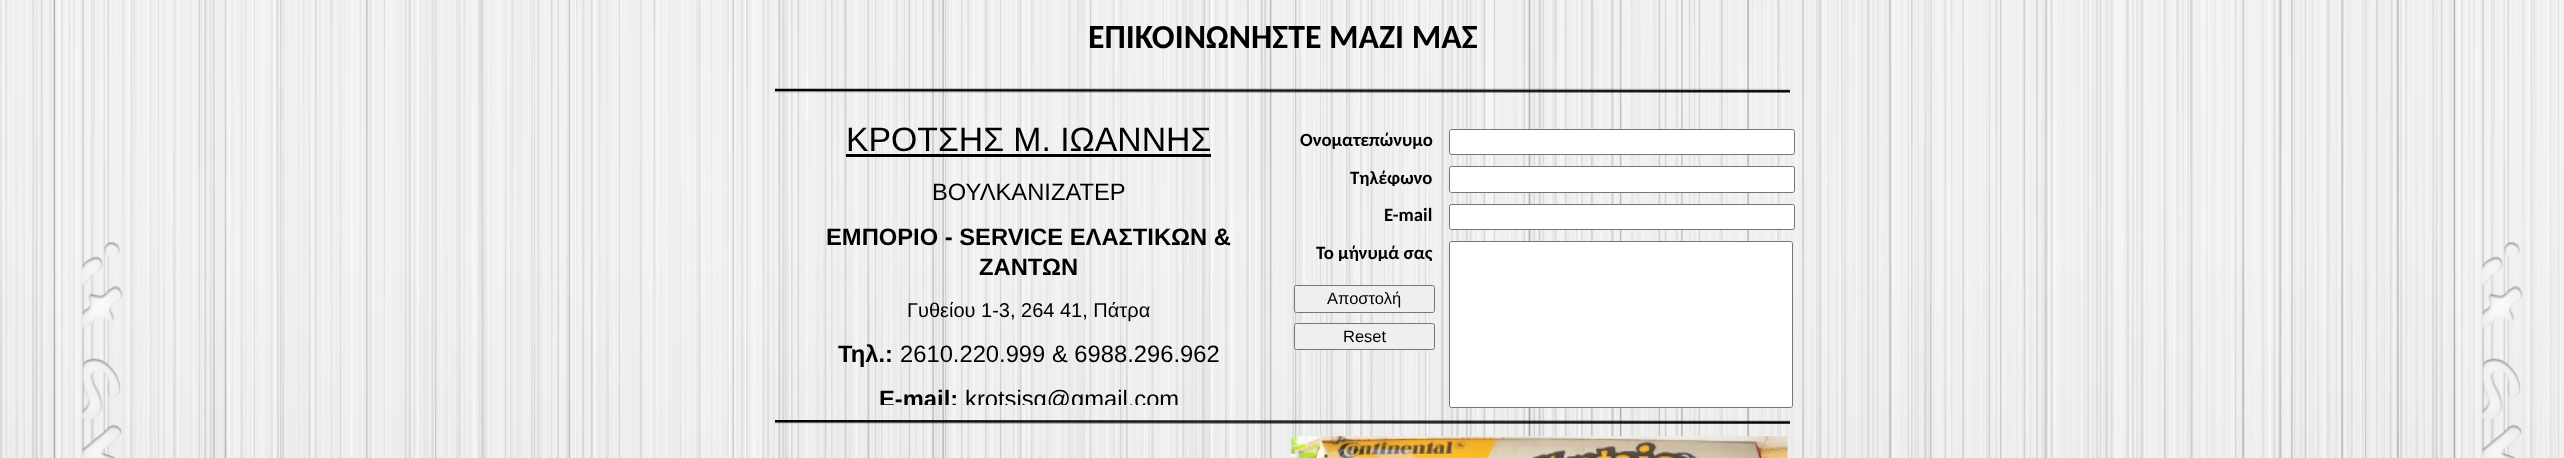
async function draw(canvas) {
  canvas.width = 2564
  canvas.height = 458
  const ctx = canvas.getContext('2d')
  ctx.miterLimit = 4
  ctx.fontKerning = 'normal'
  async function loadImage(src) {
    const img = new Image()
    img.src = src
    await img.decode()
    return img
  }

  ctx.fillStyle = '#fff'
  ctx.fillRect(0, 0, 2564, 458)
  ctx.drawImage(await loadImage('image0.png'), 0, 0, 2564, 458)
  ctx.font = 'bold 33.75px Carlito'
  ctx.fillStyle = '#000'
  ctx.fillText('ΕΠΙΚΟΙΝΩΝΗΣΤΕ ΜΑΖΙ ΜΑΣ', 1088, 48)
  ctx.drawImage(await loadImage('image1.png'), 775, 88, 1015, 5)
  ctx.font = '33.75px Liberation Sans'
  ctx.fillText('ΚΡΟΤΣΗΣ Μ. ΙΩΑΝΝΗΣ', 846, 151)
  ctx.fillRect(846, 154, 365, 3)
  ctx.font = '23.75px Liberation Sans'
  ctx.fillText('ΒΟΥΛΚΑΝΙΖΑΤΕΡ', 932, 200)
  ctx.font = 'bold 23.75px Liberation Sans'
  ctx.fillText('ΕΜΠΟΡΙΟ - SERVICE ΕΛΑΣΤΙΚΩΝ &', 826, 245)
  ctx.fillText('ΖΑΝΤΩΝ', 979, 275)
  ctx.font = '20px Liberation Sans'
  ctx.fillText('Γυθείου 1-3, 264 41, Πάτρα', 907, 317)
  ctx.font = 'bold 23.75px Liberation Sans'
  ctx.fillText('Τηλ.:', 838, 362)
  ctx.font = '23.75px Liberation Sans'
  ctx.fillText('2610.220.999 & 6988.296.962', 900, 362)
  ctx.save()
  ctx.beginPath()
  ctx.rect(775, 119, 508, 286)
  ctx.clip()
  ctx.font = 'bold 23.75px Liberation Sans'
  ctx.fillText('E-mail:', 879, 407)
  ctx.font = '23.75px Liberation Sans'
  ctx.fillText('krotsisg@gmail.com', 965, 407)
  ctx.restore()
  ctx.font = 'bold 18.75px Carlito'
  ctx.fillText('Ονοματεπώνυμο', 1300, 146)
  ctx.fillStyle = '#fff'
  ctx.beginPath()
  ctx.roundRect(1449.5, 129.5, 345, 25, 2)
  ctx.fill()
  ctx.strokeStyle = '#767676'
  ctx.stroke()
  ctx.save()
  ctx.beginPath()
  ctx.rect(1293, 166, 140, 20)
  ctx.clip()
  ctx.fillStyle = '#000'
  ctx.fillText('Τηλέφωνο', 1350, 184)
  ctx.restore()
  ctx.beginPath()
  ctx.roundRect(1449.5, 166.5, 345, 26, 2)
  ctx.fill()
  ctx.stroke()
  ctx.fillStyle = '#000'
  ctx.fillText('E-mail', 1384, 221)
  ctx.fillStyle = '#fff'
  ctx.beginPath()
  ctx.roundRect(1449.5, 204.5, 345, 25, 2)
  ctx.fill()
  ctx.stroke()
  ctx.save()
  ctx.beginPath()
  ctx.rect(1293, 241, 140, 20)
  ctx.clip()
  ctx.fillStyle = '#000'
  ctx.fillText('Το μήνυμά σας', 1316, 259)
  ctx.restore()
  ctx.beginPath()
  ctx.roundRect(1449.5, 241.5, 343, 166, 2)
  ctx.fill()
  ctx.stroke()
  ctx.fillStyle = '#efefef'
  ctx.beginPath()
  ctx.roundRect(1294.5, 285.5, 140, 27, 2)
  ctx.fill()
  ctx.stroke()
  ctx.font = '16.5px Liberation Sans'
  ctx.fillStyle = '#000'
  ctx.fillText('Αποστολή', 1327, 304)
  ctx.fillStyle = '#efefef'
  ctx.beginPath()
  ctx.roundRect(1294.5, 323.5, 140, 26, 2)
  ctx.fill()
  ctx.stroke()
  ctx.fillStyle = '#000'
  ctx.fillText('Reset', 1343, 342)
  ctx.drawImage(await loadImage('image2.png'), 775, 420, 1015, 4)
  ctx.drawImage(await loadImage('image3.png'), 1291, 436, 497, 22)
}

draw(document.querySelector('canvas'))
